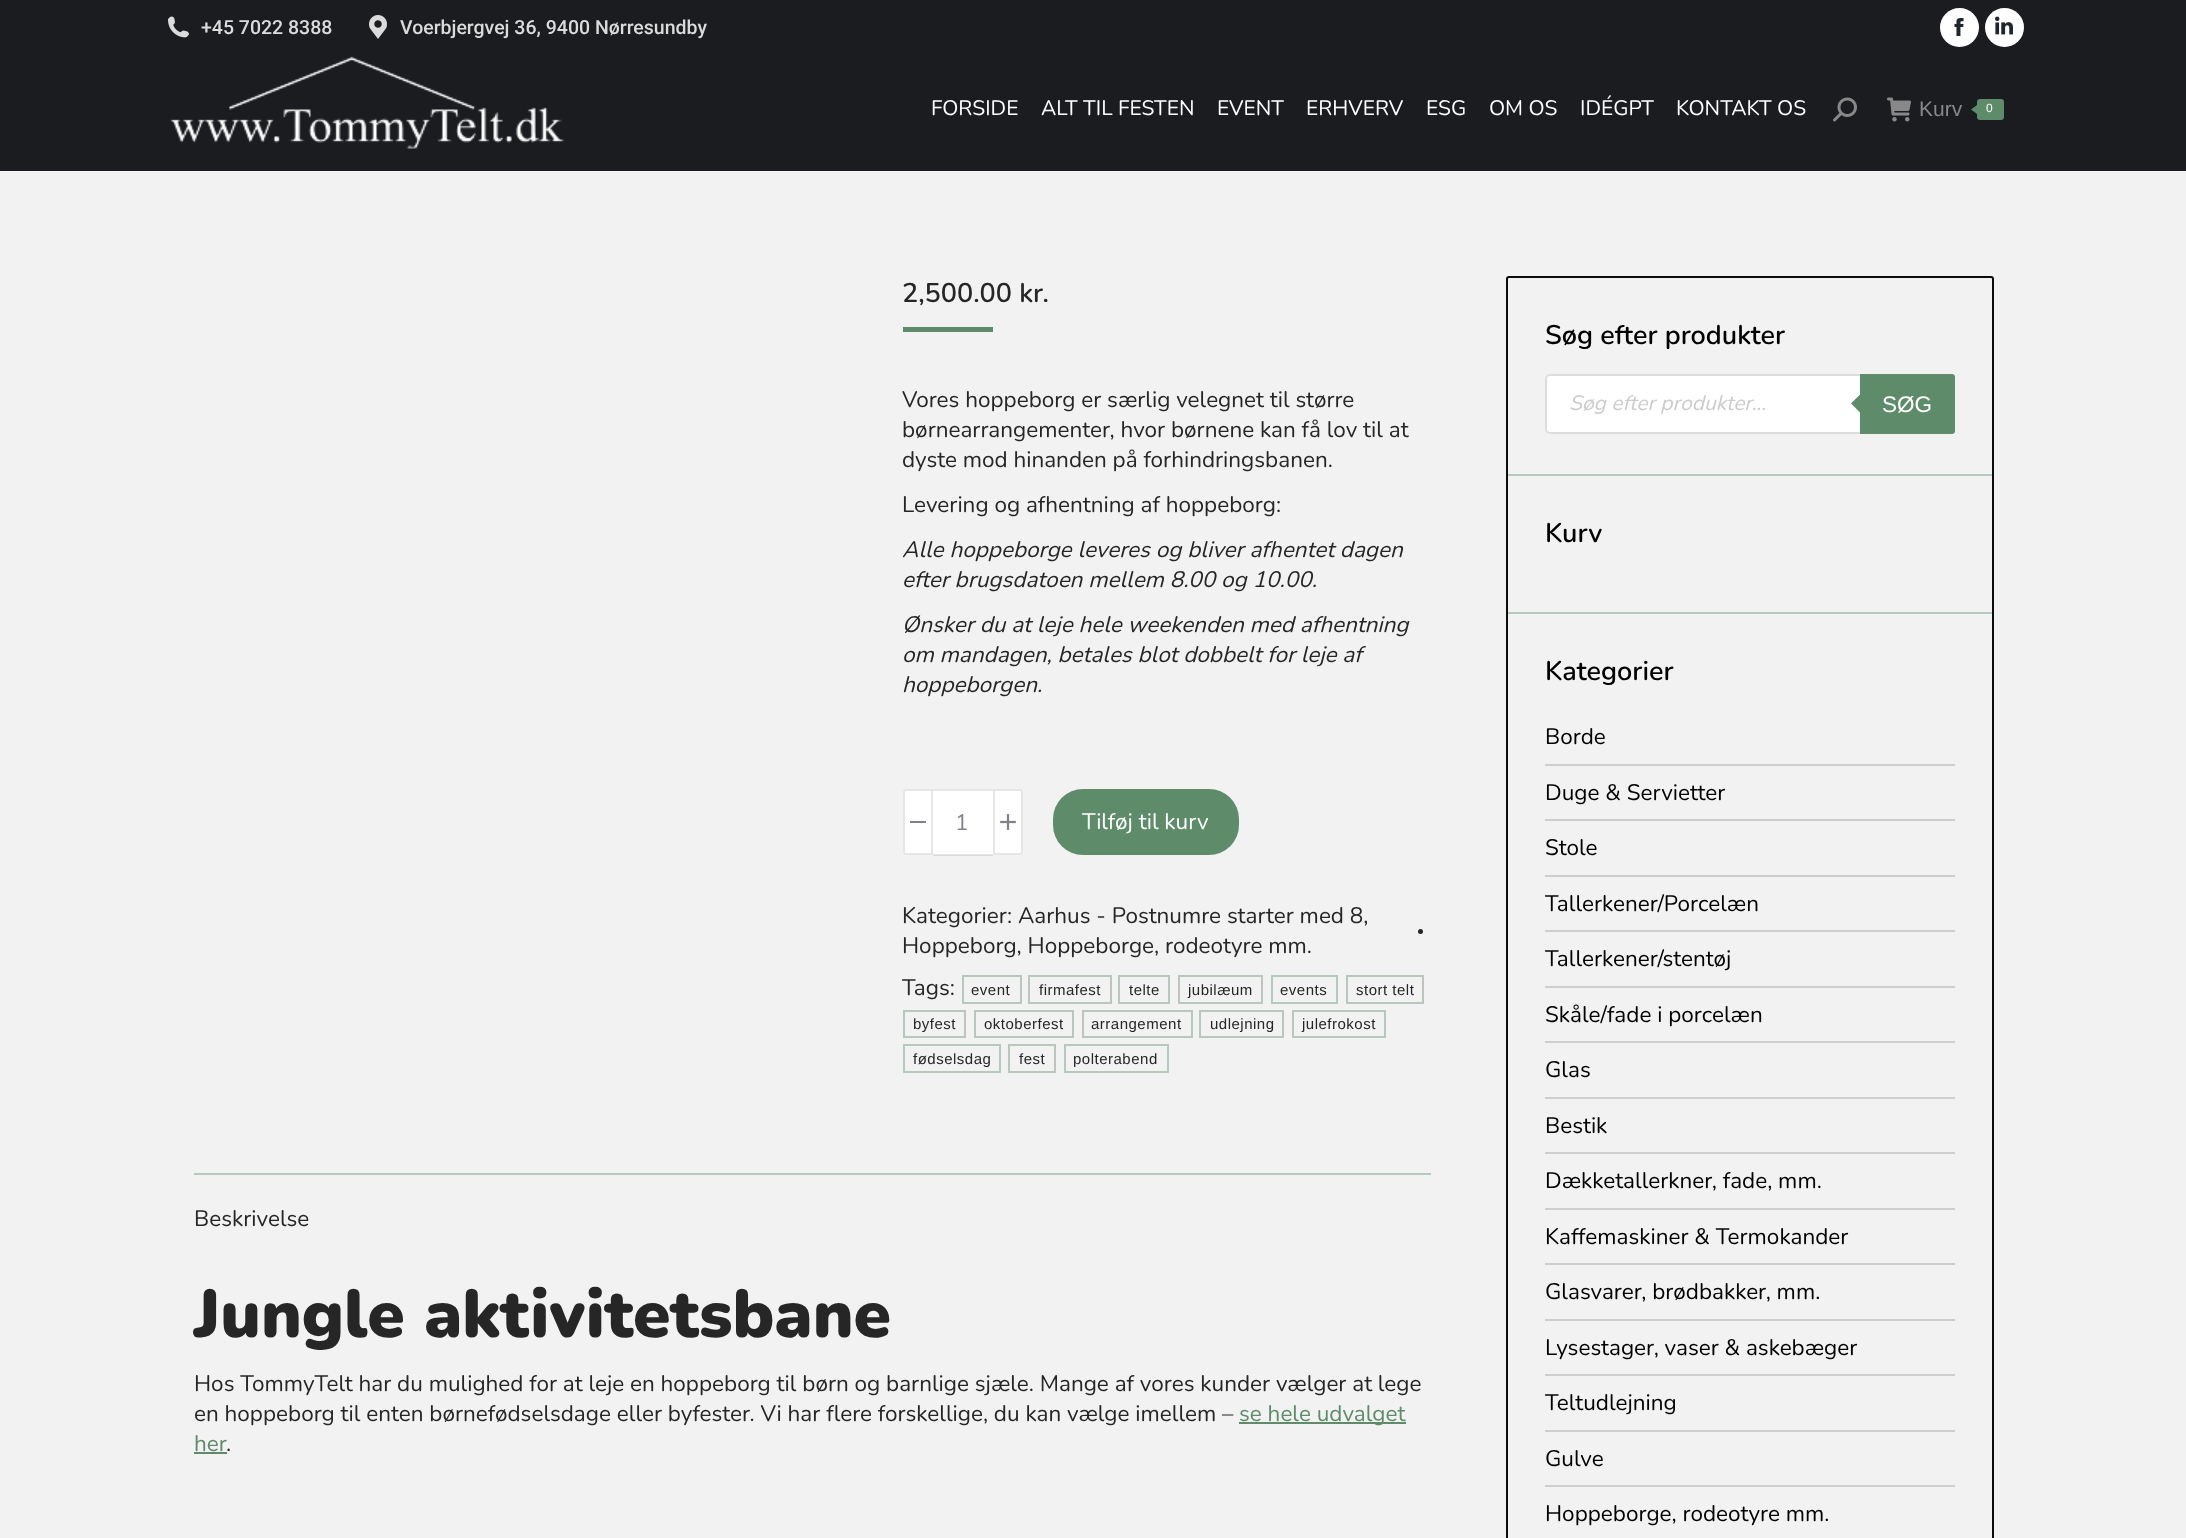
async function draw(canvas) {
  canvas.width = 2186
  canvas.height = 1538
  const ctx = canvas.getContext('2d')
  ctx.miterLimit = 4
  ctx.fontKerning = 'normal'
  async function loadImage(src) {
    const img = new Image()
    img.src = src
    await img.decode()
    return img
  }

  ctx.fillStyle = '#f2f2f2'
  ctx.fillRect(0, 0, 2186, 1538)
  ctx.fillStyle = '#1a1c20'
  ctx.fillRect(0, 0, 2186, 171)
  ctx.drawImage(await loadImage('image0.png'), 168, 16, 21, 22)
  ctx.font = '500 19.5px Roboto'
  ctx.fillStyle = '#dbdbdb'
  ctx.fillText('+45 7022 8388', 201, 34)
  ctx.drawImage(await loadImage('image1.png'), 369, 15, 18, 24)
  ctx.fillText('Voerbjergvej 36, 9400 Nørresundby', 400, 34)
  ctx.fillStyle = '#fff'
  ctx.beginPath()
  ctx.arc(1959.5, 27.5, 19.5, 0, 2 * Math.PI)
  ctx.fill()
  ctx.drawImage(await loadImage('image2.png'), 1954, 18, 10, 18)
  ctx.beginPath()
  ctx.arc(2004.5, 27.5, 19.5, 0, 2 * Math.PI)
  ctx.fill()
  ctx.drawImage(await loadImage('image3.png'), 1995, 16, 18, 19)
  ctx.drawImage(await loadImage('image4.png'), 170, 56, 395, 93)
  ctx.font = '200 21px Nunito'
  ctx.fillText('FORSIDE', 931, 115)
  ctx.fillText('ALT TIL FESTEN', 1041, 115)
  ctx.fillText('EVENT', 1217, 115)
  ctx.fillText('ERHVERV', 1306, 115)
  ctx.fillText('ESG', 1426, 115)
  ctx.fillText('OM OS', 1489, 115)
  ctx.fillText('IDÉGPT', 1580, 115)
  ctx.fillText('KONTAKT OS', 1676, 115)
  ctx.drawImage(await loadImage('image5.png'), 1833, 97, 24, 25)
  ctx.drawImage(await loadImage('image6.png'), 1887, 97, 24, 25)
  ctx.font = '21px Liberation Sans'
  ctx.fillStyle = '#888'
  ctx.fillText('Kurv', 1919, 116)
  ctx.fillStyle = '#5e8c6a'
  ctx.beginPath()
  ctx.roundRect(1977, 99, 27, 21, 3)
  ctx.fill()
  ctx.beginPath()
  ctx.moveTo(1977, 105)
  ctx.lineTo(1977, 114)
  ctx.lineTo(1971, 109.5)
  ctx.closePath()
  ctx.fill()
  ctx.font = '12px Liberation Sans'
  ctx.fillStyle = '#fff'
  ctx.fillText('0', 1986, 112)
  ctx.font = '200 27px "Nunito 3"'
  ctx.fillStyle = '#262626'
  ctx.fillText('2,500.00 kr.', 902, 302)
  ctx.fillStyle = '#5e8c6a'
  ctx.fillRect(903, 327, 90, 5)
  ctx.font = '200 22.5px Nunito'
  ctx.fillStyle = '#262626'
  ctx.fillText('Vores hoppeborg er særlig velegnet til større', 902, 407)
  ctx.fillText('børnearrangementer, hvor børnene kan få lov til at', 902, 437)
  ctx.fillText('dyste mod hinanden på forhindringsbanen.', 902, 467)
  ctx.fillText('Levering og afhentning af hoppeborg:', 902, 512)
  ctx.font = 'italic 200 22.5px Nunito'
  ctx.fillText('Alle hoppeborge leveres og bliver afhentet dagen', 902, 557)
  ctx.fillText('efter brugsdatoen mellem 8.00 og 10.00.', 902, 587)
  ctx.fillText('Ønsker du at leje hele weekenden med afhentning', 902, 632)
  ctx.fillText('om mandagen, betales blot dobbelt for leje af', 902, 662)
  ctx.fillText('hoppeborgen.', 902, 692)
  ctx.fillStyle = '#fff'
  ctx.beginPath()
  ctx.roundRect(903, 789, 30, 66, [3, 0, 0, 3])
  ctx.fill()
  ctx.beginPath()
  ctx.roundRect(904, 790, 28, 64, [2, 0, 0, 2])
  ctx.strokeStyle = '#3333331f'
  ctx.lineWidth = 2
  ctx.stroke()
  ctx.fillStyle = '#808288'
  ctx.fillRect(910, 821, 16, 2)
  ctx.fillStyle = '#fff'
  ctx.fillRect(933, 791, 60, 64)
  ctx.fillStyle = '#e7e7e7'
  ctx.fillRect(933, 789, 60, 2)
  ctx.fillStyle = '#3333331f'
  ctx.fillRect(933, 854, 60, 2)
  ctx.font = '200 22.5px Nunito'
  ctx.fillStyle = '#808288'
  ctx.fillText('1', 955, 830)
  ctx.fillStyle = '#fff'
  ctx.beginPath()
  ctx.roundRect(993, 789, 30, 66, [0, 3, 3, 0])
  ctx.fill()
  ctx.beginPath()
  ctx.roundRect(994, 790, 28, 64, [0, 2, 2, 0])
  ctx.stroke()
  ctx.drawImage(await loadImage('image7.png'), 1000, 814, 16, 16)
  ctx.fillStyle = '#5e8c6a'
  ctx.beginPath()
  ctx.roundRect(1053, 789, 186, 66, 30)
  ctx.fill()
  ctx.fillStyle = '#fff'
  ctx.fillText('Tilføj til kurv', 1082, 829)
  ctx.fillStyle = '#262626'
  ctx.fillText('Kategorier: Aarhus - Postnumre starter med 8,', 902, 923)
  ctx.beginPath()
  ctx.arc(1420.5, 931.5, 2.5, 0, 2 * Math.PI)
  ctx.fill()
  ctx.fillText('Hoppeborg, Hoppeborge, rodeotyre mm.', 902, 953)
  ctx.fillText('Tags:', 902, 995)
  ctx.strokeStyle = '#b7c9bc'
  ctx.strokeRect(963, 976, 58, 27)
  ctx.letterSpacing = '0.5px'
  ctx.font = '15px Liberation Sans'
  ctx.fillText('event', 971, 995)
  ctx.strokeRect(1029, 976, 82, 27)
  ctx.fillText('firmafest', 1039, 995)
  ctx.strokeRect(1119, 976, 50, 27)
  ctx.fillText('telte', 1129, 995)
  ctx.strokeRect(1179, 976, 83, 27)
  ctx.fillText('jubilæum', 1188, 995)
  ctx.strokeRect(1272, 976, 65, 27)
  ctx.fillText('events', 1280, 995)
  ctx.strokeRect(1347, 976, 76, 27)
  ctx.fillText('stort telt', 1356, 995)
  ctx.strokeRect(904, 1011, 61, 26)
  ctx.fillText('byfest', 913, 1029)
  ctx.strokeRect(975, 1011, 98, 26)
  ctx.fillText('oktoberfest', 984, 1029)
  ctx.strokeRect(1083, 1011, 109, 26)
  ctx.fillText('arrangement', 1091, 1029)
  ctx.strokeRect(1200, 1011, 83, 26)
  ctx.fillText('udlejning', 1210, 1029)
  ctx.strokeRect(1293, 1011, 92, 26)
  ctx.fillText('julefrokost', 1302, 1029)
  ctx.strokeRect(904, 1045, 96, 27)
  ctx.fillText('fødselsdag', 913, 1064)
  ctx.strokeRect(1009, 1045, 46, 27)
  ctx.fillText('fest', 1019, 1064)
  ctx.strokeRect(1065, 1045, 103, 27)
  ctx.fillText('polterabend', 1073, 1064)
  ctx.fillStyle = '#b7c9bc'
  ctx.fillRect(194, 1173, 1237, 2)
  ctx.letterSpacing = '0px'
  ctx.font = '200 22.5px Nunito'
  ctx.fillStyle = '#262626'
  ctx.fillText('Beskrivelse', 194, 1226)
  ctx.font = '200 67.5px "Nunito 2"'
  ctx.fillText('Jungle aktivitetsbane', 194, 1337)
  ctx.font = '200 22.5px Nunito'
  ctx.fillText('Hos TommyTelt har du mulighed for at leje en hoppeborg til børn og barnlige sjæle. Mange af vores kunder vælger at lege', 194, 1391)
  ctx.fillText('en hoppeborg til enten børnefødselsdage eller byfester. Vi har flere forskellige, du kan vælge imellem –', 194, 1421)
  ctx.fillStyle = '#5e8c6a'
  ctx.fillRect(1239, 1422, 167, 2)
  ctx.fillText('se hele udvalget', 1239, 1421)
  ctx.fillText('her', 194, 1451)
  ctx.fillRect(194, 1452, 33, 2)
  ctx.fillStyle = '#262626'
  ctx.fillText('.', 226, 1451)
  ctx.beginPath()
  ctx.roundRect(1507, 277, 486, 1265, 2)
  ctx.strokeStyle = '#0c0c0c'
  ctx.stroke()
  ctx.font = '200 27px "Nunito 3"'
  ctx.fillStyle = '#000'
  ctx.fillText('Søg efter produkter', 1545, 344)
  ctx.fillStyle = '#fff'
  ctx.beginPath()
  ctx.roundRect(1546, 375, 408, 58, 4)
  ctx.fill()
  ctx.strokeStyle = '#ddd'
  ctx.stroke()
  ctx.font = 'italic 200 21px Nunito'
  ctx.fillStyle = '#ccc'
  ctx.fillText('Søg efter produkter...', 1569, 410)
  ctx.fillStyle = '#5e8c6a'
  ctx.beginPath()
  ctx.roundRect(1860, 374, 95, 60, [0, 3, 3, 0])
  ctx.fill()
  ctx.beginPath()
  ctx.moveTo(1863, 391.5)
  ctx.lineTo(1863, 415.5)
  ctx.lineTo(1851, 403.5)
  ctx.closePath()
  ctx.fill()
  ctx.font = '22.5px Liberation Sans'
  ctx.fillStyle = '#fff'
  ctx.fillText('SØG', 1882, 412)
  ctx.fillStyle = '#b7c9bc'
  ctx.fillRect(1508, 474, 484, 2)
  ctx.font = '200 27px "Nunito 3"'
  ctx.fillStyle = '#000'
  ctx.fillText('Kurv', 1545, 542)
  ctx.fillStyle = '#b7c9bc'
  ctx.fillRect(1508, 612, 484, 2)
  ctx.fillStyle = '#000'
  ctx.fillText('Kategorier', 1545, 680)
  ctx.font = '200 22.5px Nunito'
  ctx.fillText('Borde', 1545, 744)
  ctx.fillStyle = '#cecece'
  ctx.fillRect(1545, 764, 410, 2)
  ctx.fillStyle = '#000'
  ctx.fillText('Duge & Servietter', 1545, 800)
  ctx.fillStyle = '#cecece'
  ctx.fillRect(1545, 819, 410, 2)
  ctx.fillStyle = '#000'
  ctx.fillText('Stole', 1545, 855)
  ctx.fillStyle = '#cecece'
  ctx.fillRect(1545, 875, 410, 2)
  ctx.fillStyle = '#000'
  ctx.fillText('Tallerkener/Porcelæn', 1545, 911)
  ctx.fillStyle = '#cecece'
  ctx.fillRect(1545, 930, 410, 2)
  ctx.fillStyle = '#000'
  ctx.fillText('Tallerkener/stentøj', 1545, 966)
  ctx.fillStyle = '#cecece'
  ctx.fillRect(1545, 986, 410, 2)
  ctx.fillStyle = '#000'
  ctx.fillText('Skåle/fade i porcelæn', 1545, 1022)
  ctx.fillStyle = '#cecece'
  ctx.fillRect(1545, 1041, 410, 2)
  ctx.fillStyle = '#000'
  ctx.fillText('Glas', 1545, 1077)
  ctx.fillStyle = '#cecece'
  ctx.fillRect(1545, 1097, 410, 2)
  ctx.fillStyle = '#000'
  ctx.fillText('Bestik', 1545, 1133)
  ctx.fillStyle = '#cecece'
  ctx.fillRect(1545, 1152, 410, 2)
  ctx.fillStyle = '#000'
  ctx.fillText('Dækketallerkner, fade, mm.', 1545, 1188)
  ctx.fillStyle = '#cecece'
  ctx.fillRect(1545, 1208, 410, 2)
  ctx.fillStyle = '#000'
  ctx.fillText('Kaffemaskiner & Termokander', 1545, 1244)
  ctx.fillStyle = '#cecece'
  ctx.fillRect(1545, 1263, 410, 2)
  ctx.fillStyle = '#000'
  ctx.fillText('Glasvarer, brødbakker, mm.', 1545, 1299)
  ctx.fillStyle = '#cecece'
  ctx.fillRect(1545, 1319, 410, 2)
  ctx.fillStyle = '#000'
  ctx.fillText('Lysestager, vaser & askebæger', 1545, 1355)
  ctx.fillStyle = '#cecece'
  ctx.fillRect(1545, 1374, 410, 2)
  ctx.fillStyle = '#000'
  ctx.fillText('Teltudlejning', 1545, 1410)
  ctx.fillStyle = '#cecece'
  ctx.fillRect(1545, 1430, 410, 2)
  ctx.fillStyle = '#000'
  ctx.fillText('Gulve', 1545, 1466)
  ctx.fillStyle = '#cecece'
  ctx.fillRect(1545, 1485, 410, 2)
  ctx.fillStyle = '#000'
  ctx.fillText('Hoppeborge, rodeotyre mm.', 1545, 1521)
}

draw(document.querySelector('canvas'))
